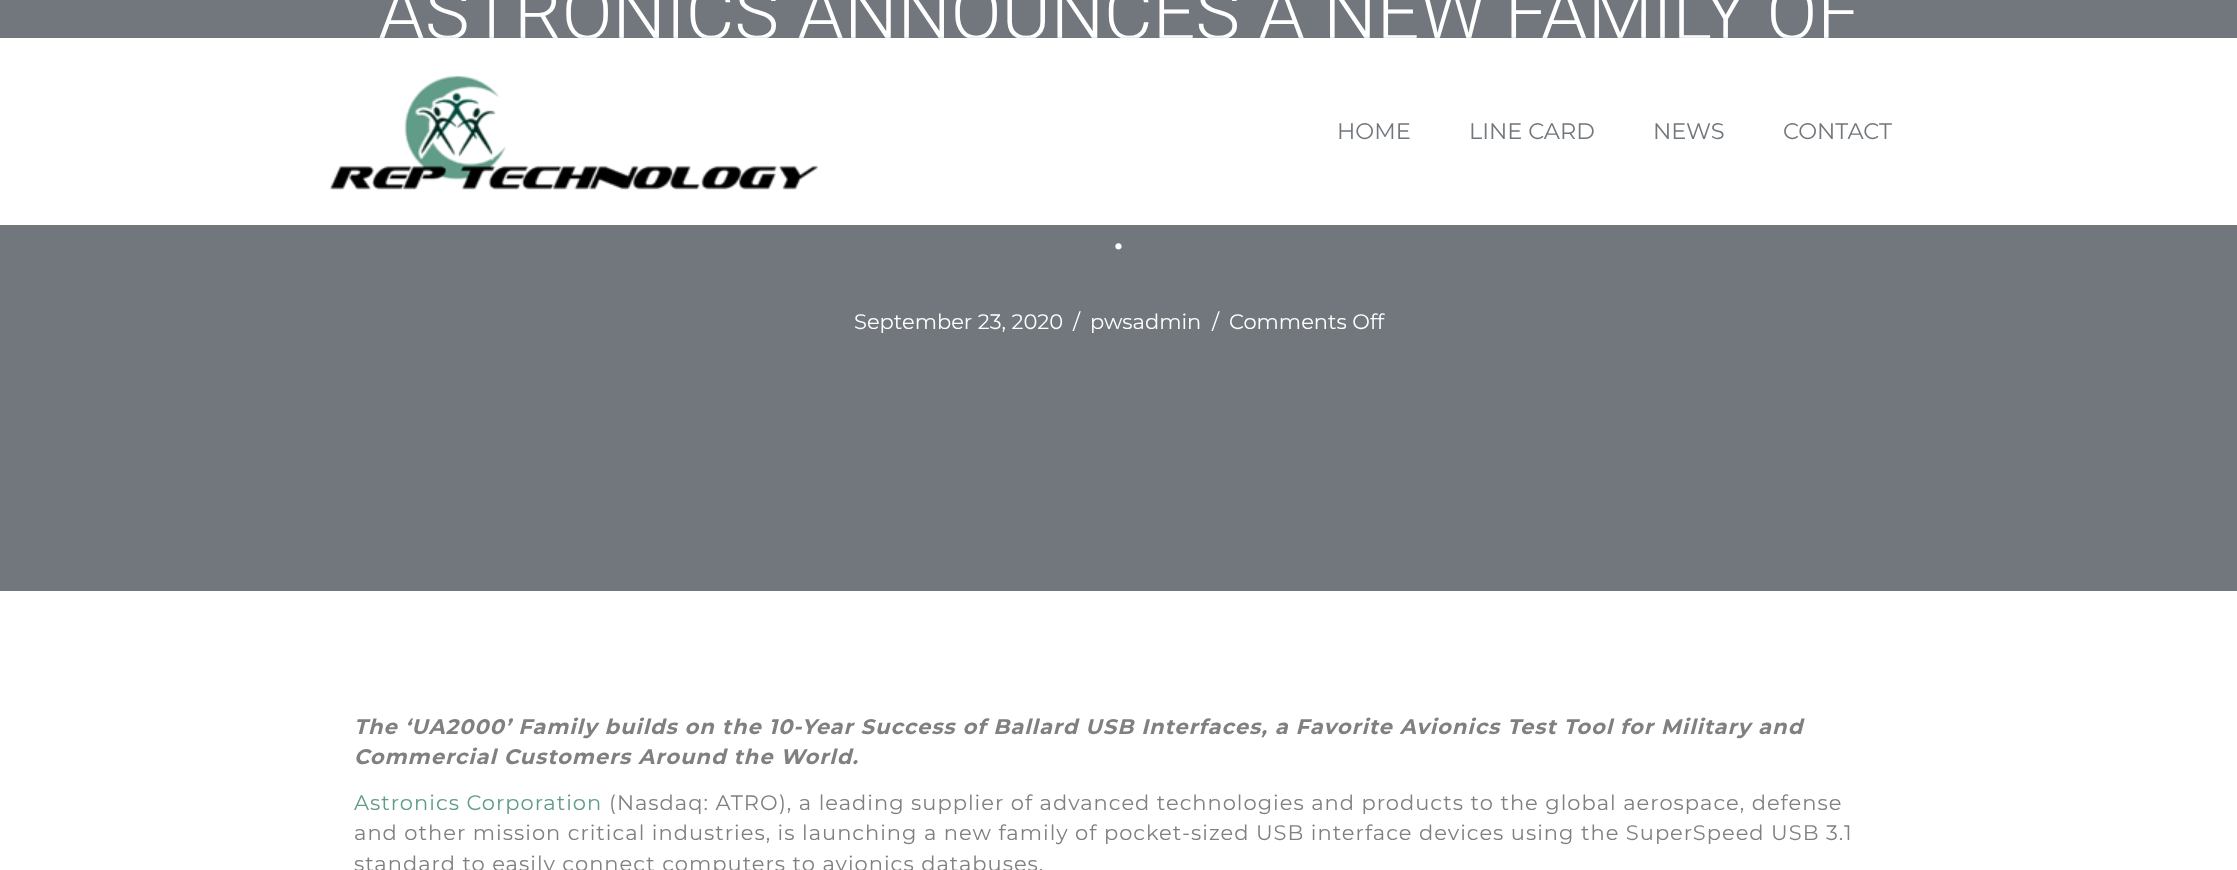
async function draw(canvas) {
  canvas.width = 2237
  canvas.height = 870
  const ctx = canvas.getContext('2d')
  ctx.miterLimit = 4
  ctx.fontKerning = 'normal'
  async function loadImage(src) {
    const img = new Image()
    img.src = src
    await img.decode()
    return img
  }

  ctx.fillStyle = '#fff'
  ctx.fillRect(0, 0, 2237, 870)
  ctx.fillStyle = '#71777c'
  ctx.fillRect(0, 0, 2237, 591)
  ctx.font = '300 75px Roboto'
  ctx.fillStyle = '#fff'
  ctx.fillText('ASTRONICS ANNOUNCES A NEW FAMILY OF', 378, 39)
  ctx.fillText('.', 1110, 249)
  ctx.font = '21px Montserrat'
  ctx.fillText('September 23, 2020', 854, 329)
  ctx.fillText('/', 1073, 329)
  ctx.fillText('pwsadmin', 1090, 329)
  ctx.fillText('/', 1212, 329)
  ctx.fillText('Comments Off', 1229, 329)
  ctx.letterSpacing = '1px'
  ctx.font = 'italic bold 21px Montserrat'
  ctx.fillStyle = '#808080'
  ctx.fillText('The ‘UA2000’ Family builds on the 10-Year Success of Ballard USB Interfaces, a Favorite Avionics Test Tool for Military and', 354, 734)
  ctx.fillText('Commercial Customers Around the World.', 354, 764)
  ctx.font = '21px Montserrat'
  ctx.fillStyle = '#619c88'
  ctx.fillText('Astronics Corporation', 354, 810)
  ctx.fillStyle = '#808080'
  ctx.fillText('(Nasdaq: ATRO), a leading supplier of advanced technologies and products to the global aerospace, defense', 609, 810)
  ctx.fillText('and other mission critical industries, is launching a new family of pocket-sized USB interface devices using the SuperSpeed USB 3.1', 354, 840)
  ctx.fillText('standard to easily connect computers to avionics databuses.', 354, 871)
  ctx.fillStyle = '#777'
  ctx.filter = 'blur(1.5px)'
  ctx.beginPath()
  ctx.rect(0, 39, 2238, 188)
  ctx.fill()
  ctx.filter = 'none'
  ctx.fillStyle = '#fff'
  ctx.fillRect(0, 38, 2237, 187)
  ctx.drawImage(await loadImage('image0.png'), 329, 75, 489, 115)
  ctx.letterSpacing = '0px'
  ctx.font = '22.5px Montserrat'
  ctx.fillStyle = '#71777c'
  ctx.fillText('HOME', 1337, 139)
  ctx.fillText('LINE CARD', 1469, 139)
  ctx.fillText('NEWS', 1653, 139)
  ctx.fillText('CONTACT', 1783, 139)
}

draw(document.querySelector('canvas'))
